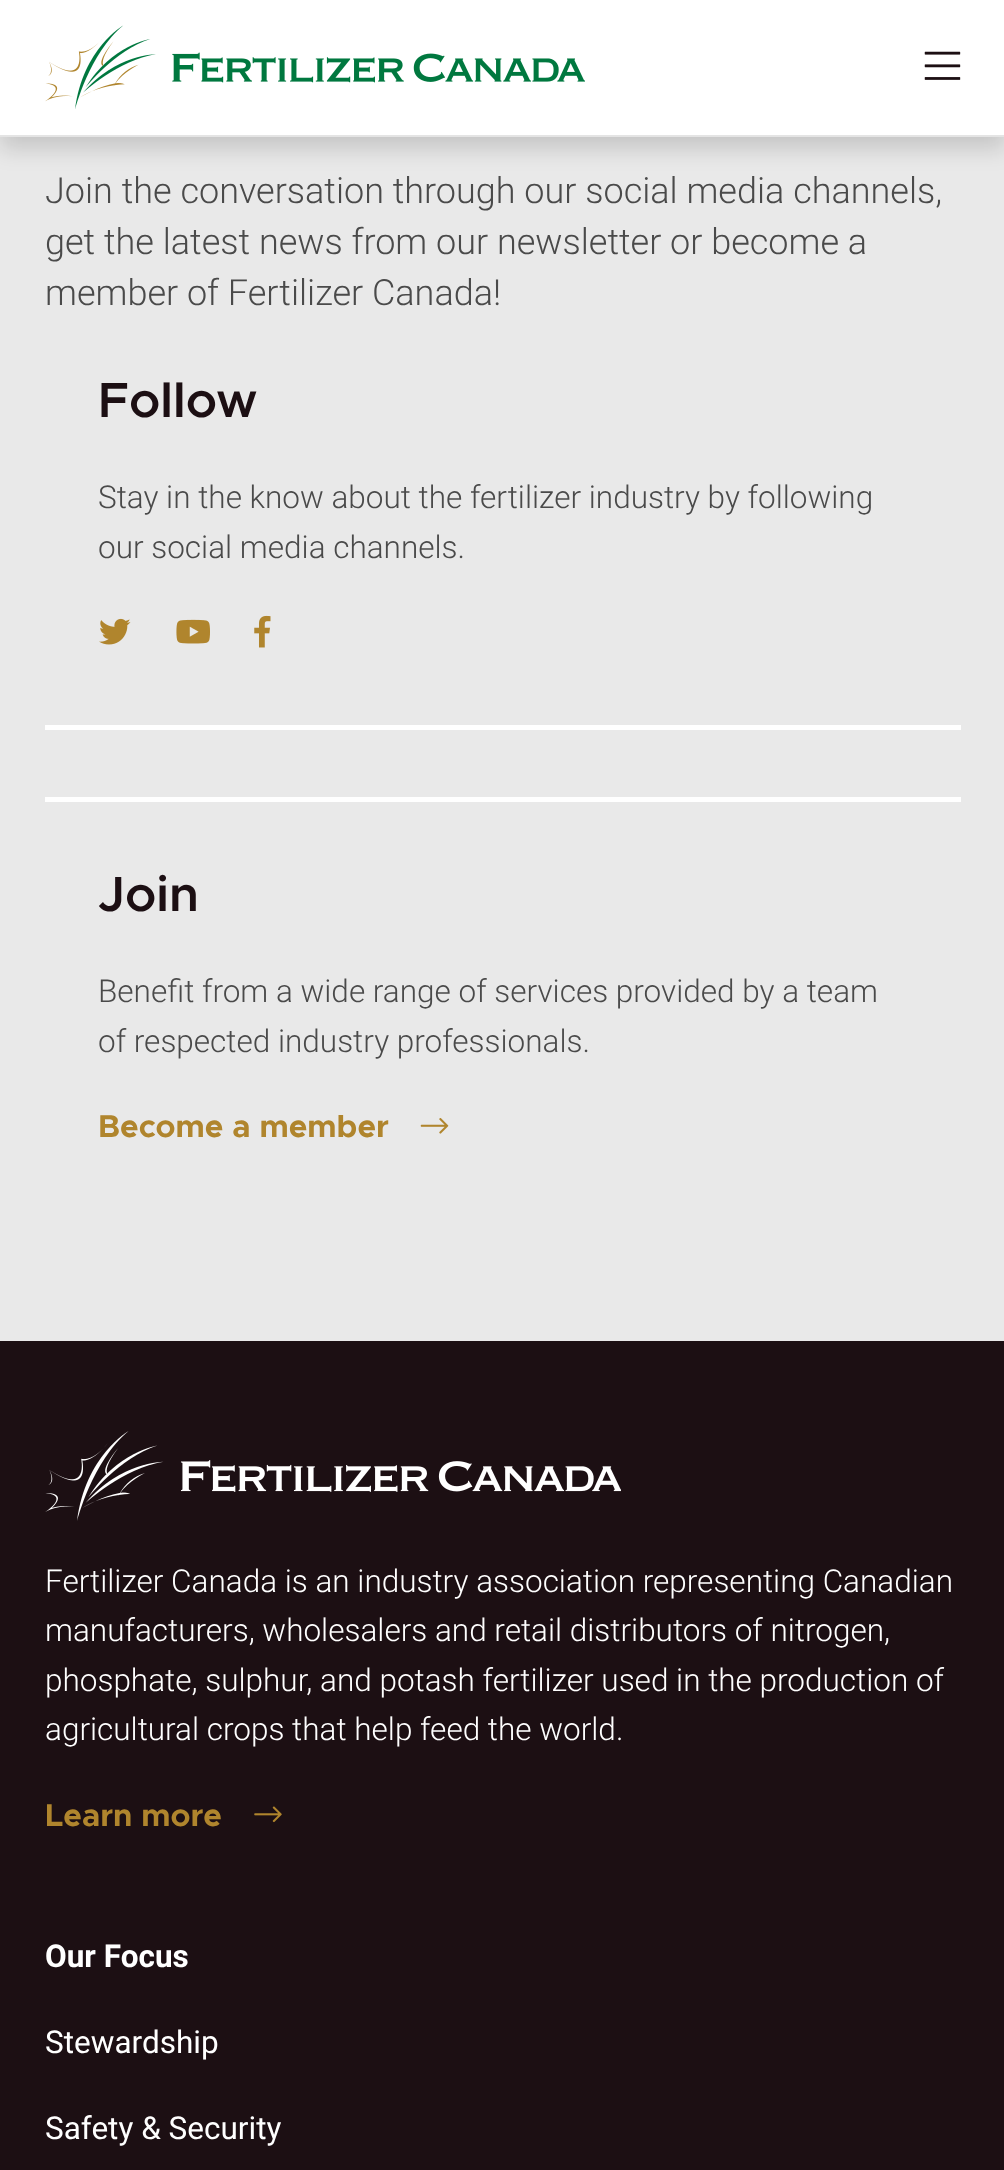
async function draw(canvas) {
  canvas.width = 1004
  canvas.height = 2170
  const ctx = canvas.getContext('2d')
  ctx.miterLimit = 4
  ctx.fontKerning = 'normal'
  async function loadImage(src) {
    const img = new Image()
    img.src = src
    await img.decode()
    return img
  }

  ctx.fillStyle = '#e9e9e9'
  ctx.fillRect(0, 0, 1004, 2170)
  ctx.fillStyle = '#00000026'
  ctx.filter = 'blur(11px)'
  ctx.beginPath()
  ctx.rect(0, 11, 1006, 138)
  ctx.fill()
  ctx.filter = 'none'
  ctx.fillStyle = '#fff'
  ctx.fillRect(0, 0, 1004, 135)
  ctx.fillStyle = '#e4e4e4'
  ctx.fillRect(0, 135, 1004, 2)
  ctx.drawImage(await loadImage('image0.png'), 45, 25, 540, 84)
  ctx.drawImage(await loadImage('image1.png'), 924, 51, 37, 29)
  ctx.font = '300 36px Roboto'
  ctx.fillStyle = '#4a4a4a'
  ctx.fillText('Join the conversation through our social media channels,', 45, 203)
  ctx.fillText('get the latest news from our newsletter or become a', 45, 254)
  ctx.fillText('member of Fertilizer Canada!', 45, 305)
  ctx.fillStyle = '#fff'
  ctx.fillRect(45, 725, 916, 5)
  ctx.font = '600 49.5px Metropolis'
  ctx.fillStyle = '#1c0f13'
  ctx.fillText('Follow', 98, 417)
  ctx.font = '300 31.5px Roboto'
  ctx.fillStyle = '#4a4a4a'
  ctx.fillText('Stay in the know about the fertilizer industry by following', 98, 508)
  ctx.fillText('our social media channels.', 98, 558)
  ctx.drawImage(await loadImage('image2.png'), 99, 618, 32, 27)
  ctx.drawImage(await loadImage('image3.png'), 176, 619, 34, 25)
  ctx.drawImage(await loadImage('image4.png'), 254, 615, 17, 33)
  ctx.fillStyle = '#fff'
  ctx.fillRect(45, 797, 916, 5)
  ctx.font = '600 49.5px Metropolis'
  ctx.fillStyle = '#1c0f13'
  ctx.fillText('Join', 98, 911)
  ctx.font = '300 31.5px Roboto'
  ctx.fillStyle = '#4a4a4a'
  ctx.fillText('Benefit from a wide range of services provided by a team', 98, 1002)
  ctx.fillText('of respected industry professionals.', 98, 1052)
  ctx.font = 'bold 31.5px Metropolis'
  ctx.fillStyle = '#b0852d'
  ctx.fillText('Become a member', 98, 1137)
  ctx.drawImage(await loadImage('image5.png'), 420, 1118, 29, 16)
  ctx.fillStyle = '#1c0f13'
  ctx.fillRect(0, 1341, 1004, 829)
  ctx.drawImage(await loadImage('image6.png'), 45, 1431, 576, 90)
  ctx.font = '300 31.5px Roboto'
  ctx.fillStyle = '#fff'
  ctx.fillText('Fertilizer Canada is an industry association representing Canadian', 45, 1592)
  ctx.fillText('manufacturers, wholesalers and retail distributors of nitrogen,', 45, 1641)
  ctx.fillText('phosphate, sulphur, and potash fertilizer used in the production of', 45, 1691)
  ctx.fillText('agricultural crops that help feed the world.', 45, 1740)
  ctx.font = 'bold 31.5px Metropolis'
  ctx.fillStyle = '#b0852d'
  ctx.fillText('Learn more', 45, 1826)
  ctx.drawImage(await loadImage('image7.png'), 254, 1806, 28, 17)
  ctx.font = 'bold 31.5px Roboto'
  ctx.fillStyle = '#fff'
  ctx.fillText('Our Focus', 45, 1967)
  ctx.font = '31.5px Roboto'
  ctx.fillText('Stewardship', 45, 2053)
  ctx.fillText('Safety & Security', 45, 2139)
}

draw(document.querySelector('canvas'))
